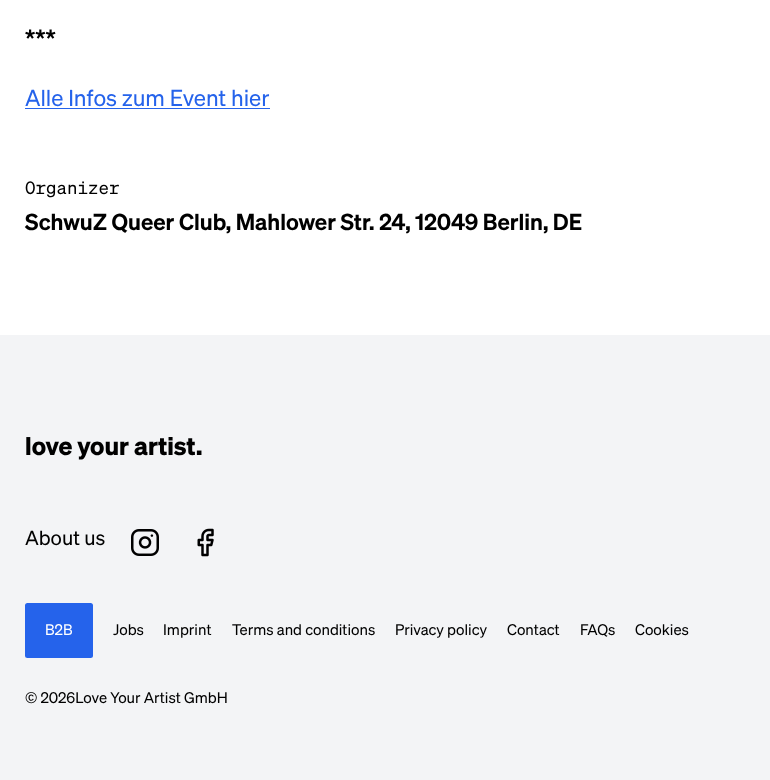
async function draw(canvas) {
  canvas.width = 770
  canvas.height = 780
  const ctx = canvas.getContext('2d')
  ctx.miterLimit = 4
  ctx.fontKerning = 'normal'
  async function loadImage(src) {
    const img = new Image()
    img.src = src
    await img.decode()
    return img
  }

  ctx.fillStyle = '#fff'
  ctx.fillRect(0, 0, 770, 780)
  ctx.font = '600 22.5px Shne'
  ctx.fillStyle = '#000'
  ctx.fillText('***', 25, 46)
  ctx.font = '22.5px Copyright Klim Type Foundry'
  ctx.fillStyle = '#2563eb'
  ctx.fillText('Alle Infos zum Event hier', 25, 106)
  ctx.fillRect(25, 108, 245, 1)
  ctx.font = '17.5px "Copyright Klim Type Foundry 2"'
  ctx.fillStyle = '#000'
  ctx.fillText('Organizer', 25, 194)
  ctx.font = '600 22.5px Shne'
  ctx.fillText('SchwuZ Queer Club, Mahlower Str. 24, 12049 Berlin, DE', 25, 230)
  ctx.fillStyle = '#f3f4f6'
  ctx.fillRect(0, 335, 770, 445)
  ctx.font = 'bold 25px Copyright Klim Type Foundry'
  ctx.fillStyle = '#000'
  ctx.fillText('love your artist.', 25, 455)
  ctx.font = '20px Copyright Klim Type Foundry'
  ctx.fillText('About us', 25, 545)
  ctx.drawImage(await loadImage('image0.png'), 131, 529, 28, 27)
  ctx.drawImage(await loadImage('image1.png'), 197, 528, 17, 29)
  ctx.fillStyle = '#2563eb'
  ctx.beginPath()
  ctx.roundRect(25, 603, 68, 55, 2.5)
  ctx.fill()
  ctx.font = '15px Copyright Klim Type Foundry'
  ctx.fillStyle = '#fff'
  ctx.fillText('B2B', 45, 635)
  ctx.fillStyle = '#000'
  ctx.fillText('Jobs', 113, 635)
  ctx.fillText('Imprint', 163, 635)
  ctx.fillText('Terms and conditions', 232, 635)
  ctx.fillText('Privacy policy', 395, 635)
  ctx.fillText('Contact', 507, 635)
  ctx.fillText('FAQs', 580, 635)
  ctx.fillText('Cookies', 635, 635)
  ctx.fillText('© 2026Love Your Artist GmbH', 25, 703)
}

draw(document.querySelector('canvas'))
